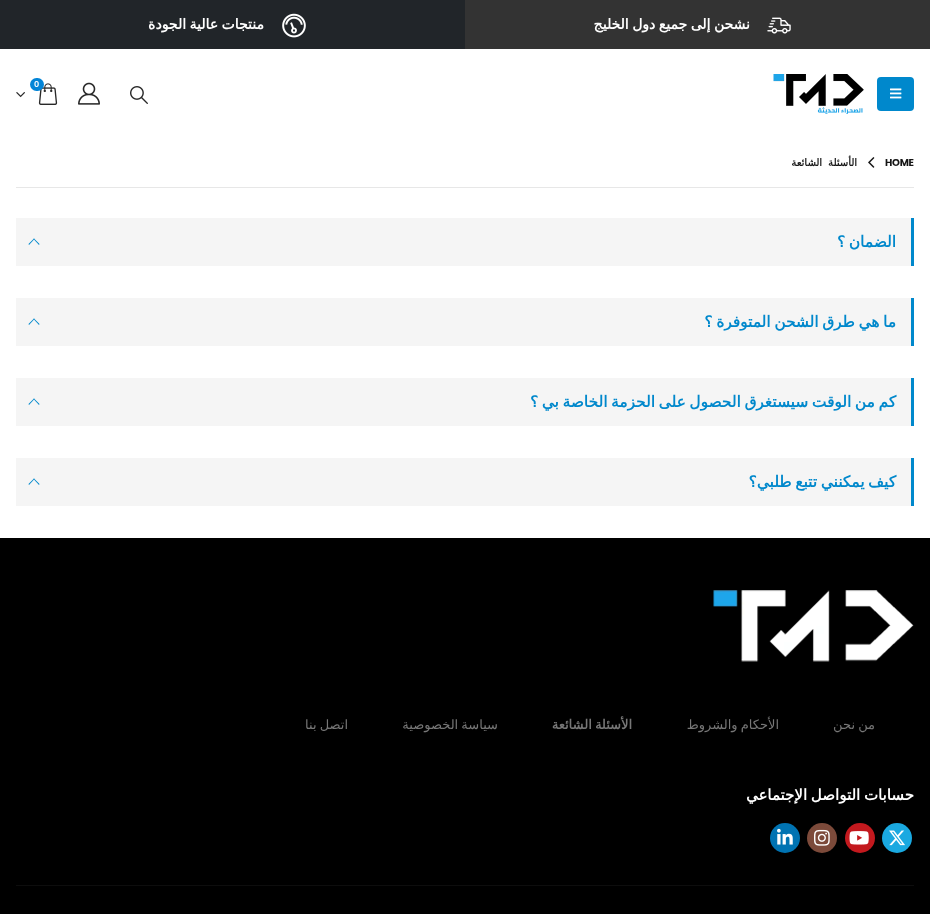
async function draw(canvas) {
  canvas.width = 930
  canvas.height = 914
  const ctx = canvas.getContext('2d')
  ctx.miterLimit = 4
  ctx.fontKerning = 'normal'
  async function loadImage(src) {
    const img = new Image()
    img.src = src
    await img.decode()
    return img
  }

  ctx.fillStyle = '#fff'
  ctx.fillRect(0, 0, 930, 914)
  ctx.fillStyle = '#333'
  ctx.fillRect(465, 0, 465, 49)
  ctx.drawImage(await loadImage('image0.png'), 767, 17, 24, 17)
  ctx.wordSpacing = '-1px'
  ctx.direction = 'rtl'
  ctx.font = 'bold 14px DejaVu Sans'
  ctx.fillStyle = '#fff'
  ctx.fillText('نشحن إلى جميع دول الخليج', 750, 29)
  ctx.fillStyle = '#212529'
  ctx.fillRect(0, 0, 465, 49)
  ctx.drawImage(await loadImage('image1.png'), 282, 13, 24, 25)
  ctx.fillStyle = '#fff'
  ctx.fillText('منتجات عالية الجودة', 264, 29)
  ctx.fillStyle = '#08c'
  ctx.beginPath()
  ctx.roundRect(877, 77, 37, 34, 4)
  ctx.fill()
  ctx.drawImage(await loadImage('image2.png'), 890, 88, 12, 11)
  ctx.drawImage(await loadImage('image3.png'), 773, 74, 91, 40)
  ctx.drawImage(await loadImage('image4.png'), 130, 86, 18, 18)
  ctx.drawImage(await loadImage('image5.png'), 78, 82, 22, 23)
  ctx.drawImage(await loadImage('image6.png'), 38, 83, 20, 22)
  ctx.fillStyle = '#0284d7'
  ctx.beginPath()
  ctx.roundRect(30, 78, 14, 13, 6.5)
  ctx.fill()
  ctx.wordSpacing = '0px'
  ctx.direction = 'ltr'
  ctx.font = '600 8px Poppins'
  ctx.fillStyle = '#fff'
  ctx.fillText('0', 34, 87)
  ctx.drawImage(await loadImage('image7.png'), 16, 92, 9, 6)
  ctx.letterSpacing = '-0.25px'
  ctx.font = 'bold 10px Poppins'
  ctx.fillStyle = '#151515'
  ctx.fillText('HOME', 885, 166)
  ctx.drawImage(await loadImage('image8.png'), 868, 157, 7, 11)
  ctx.wordSpacing = '3px'
  ctx.direction = 'rtl'
  ctx.font = 'bold 10px DejaVu Sans'
  ctx.fillText('الأسئلة الشائعة', 857, 166)
  ctx.fillStyle = '#e7e7e7'
  ctx.fillRect(16, 187, 898, 1)
  ctx.fillStyle = '#f5f5f5'
  ctx.fillRect(16, 218, 895, 48)
  ctx.fillStyle = '#08c'
  ctx.fillRect(911, 218, 3, 48)
  ctx.letterSpacing = '0px'
  ctx.wordSpacing = '-1.25px'
  ctx.font = 'bold 15.4px DejaVu Sans'
  ctx.fillText('الضمان ؟', 896, 247)
  ctx.beginPath()
  ctx.moveTo(28.5, 244)
  ctx.lineTo(34, 238.5)
  ctx.lineTo(34.5, 239)
  ctx.lineTo(29, 245)
  ctx.closePath()
  ctx.fill()
  ctx.beginPath()
  ctx.moveTo(33.5, 239)
  ctx.lineTo(34, 238.5)
  ctx.lineTo(39.5, 244)
  ctx.lineTo(39, 245)
  ctx.closePath()
  ctx.fill()
  ctx.fillStyle = '#f5f5f5'
  ctx.fillRect(16, 298, 895, 48)
  ctx.fillStyle = '#08c'
  ctx.fillRect(911, 298, 3, 48)
  ctx.fillText('ما هي طرق الشحن المتوفرة ؟', 896, 327)
  ctx.beginPath()
  ctx.moveTo(28.5, 324)
  ctx.lineTo(34, 318.5)
  ctx.lineTo(34.5, 319)
  ctx.lineTo(29, 325)
  ctx.closePath()
  ctx.fill()
  ctx.beginPath()
  ctx.moveTo(33.5, 319)
  ctx.lineTo(34, 318.5)
  ctx.lineTo(39.5, 324)
  ctx.lineTo(39, 325)
  ctx.closePath()
  ctx.fill()
  ctx.fillStyle = '#f5f5f5'
  ctx.fillRect(16, 378, 895, 48)
  ctx.fillStyle = '#08c'
  ctx.fillRect(911, 378, 3, 48)
  ctx.fillText('كم من الوقت سيستغرق الحصول على الحزمة الخاصة بي ؟', 896, 407)
  ctx.beginPath()
  ctx.moveTo(28.5, 404)
  ctx.lineTo(34, 398.5)
  ctx.lineTo(34.5, 399)
  ctx.lineTo(29, 405)
  ctx.closePath()
  ctx.fill()
  ctx.beginPath()
  ctx.moveTo(33.5, 399)
  ctx.lineTo(34, 398.5)
  ctx.lineTo(39.5, 404)
  ctx.lineTo(39, 405)
  ctx.closePath()
  ctx.fill()
  ctx.fillStyle = '#f5f5f5'
  ctx.fillRect(16, 458, 895, 48)
  ctx.fillStyle = '#08c'
  ctx.fillRect(911, 458, 3, 48)
  ctx.fillText('كيف يمكنني تتبع طلبي؟', 896, 487)
  ctx.beginPath()
  ctx.moveTo(28.5, 484)
  ctx.lineTo(34, 478.5)
  ctx.lineTo(34.5, 479)
  ctx.lineTo(29, 485)
  ctx.closePath()
  ctx.fill()
  ctx.beginPath()
  ctx.moveTo(33.5, 479)
  ctx.lineTo(34, 478.5)
  ctx.lineTo(39.5, 484)
  ctx.lineTo(39, 485)
  ctx.closePath()
  ctx.fill()
  ctx.fillStyle = '#000'
  ctx.fillRect(0, 538, 930, 376)
  ctx.drawImage(await loadImage('image9.png'), 713, 590, 201, 72)
  ctx.wordSpacing = '-1px'
  ctx.font = '13px DejaVu Sans'
  ctx.fillStyle = '#777'
  ctx.fillText('من نحن', 875, 729)
  ctx.fillText('الأحكام والشروط', 779, 729)
  ctx.font = 'bold 13px DejaVu Sans'
  ctx.fillText('الأسئلة الشائعة', 632, 729)
  ctx.font = '13px DejaVu Sans'
  ctx.fillText('سياسة الخصوصية', 498, 729)
  ctx.fillText('اتصل بنا', 348, 729)
  ctx.font = 'bold 15px DejaVu Sans'
  ctx.fillStyle = '#fff'
  ctx.fillText('حسابات التواصل الإجتماعي', 914, 800)
  ctx.fillStyle = '#1aa9e1'
  ctx.beginPath()
  ctx.arc(897, 838, 15, 0, 2 * Math.PI)
  ctx.fill()
  ctx.drawImage(await loadImage('image10.png'), 889, 830, 16, 16)
  ctx.fillStyle = '#c3191e'
  ctx.beginPath()
  ctx.arc(860, 838, 15, 0, 2 * Math.PI)
  ctx.fill()
  ctx.drawImage(await loadImage('image11.png'), 849, 831, 20, 14)
  ctx.fillStyle = '#7c4a3a'
  ctx.beginPath()
  ctx.arc(822, 838, 15, 0, 2 * Math.PI)
  ctx.fill()
  ctx.drawImage(await loadImage('image12.png'), 814, 829, 16, 17)
  ctx.fillStyle = '#0073b2'
  ctx.beginPath()
  ctx.arc(785, 838, 15, 0, 2 * Math.PI)
  ctx.fill()
  ctx.drawImage(await loadImage('image13.png'), 777, 828, 16, 17)
  ctx.fillStyle = '#0d0d0d'
  ctx.fillRect(16, 885, 898, 1)
}

draw(document.querySelector('canvas'))
